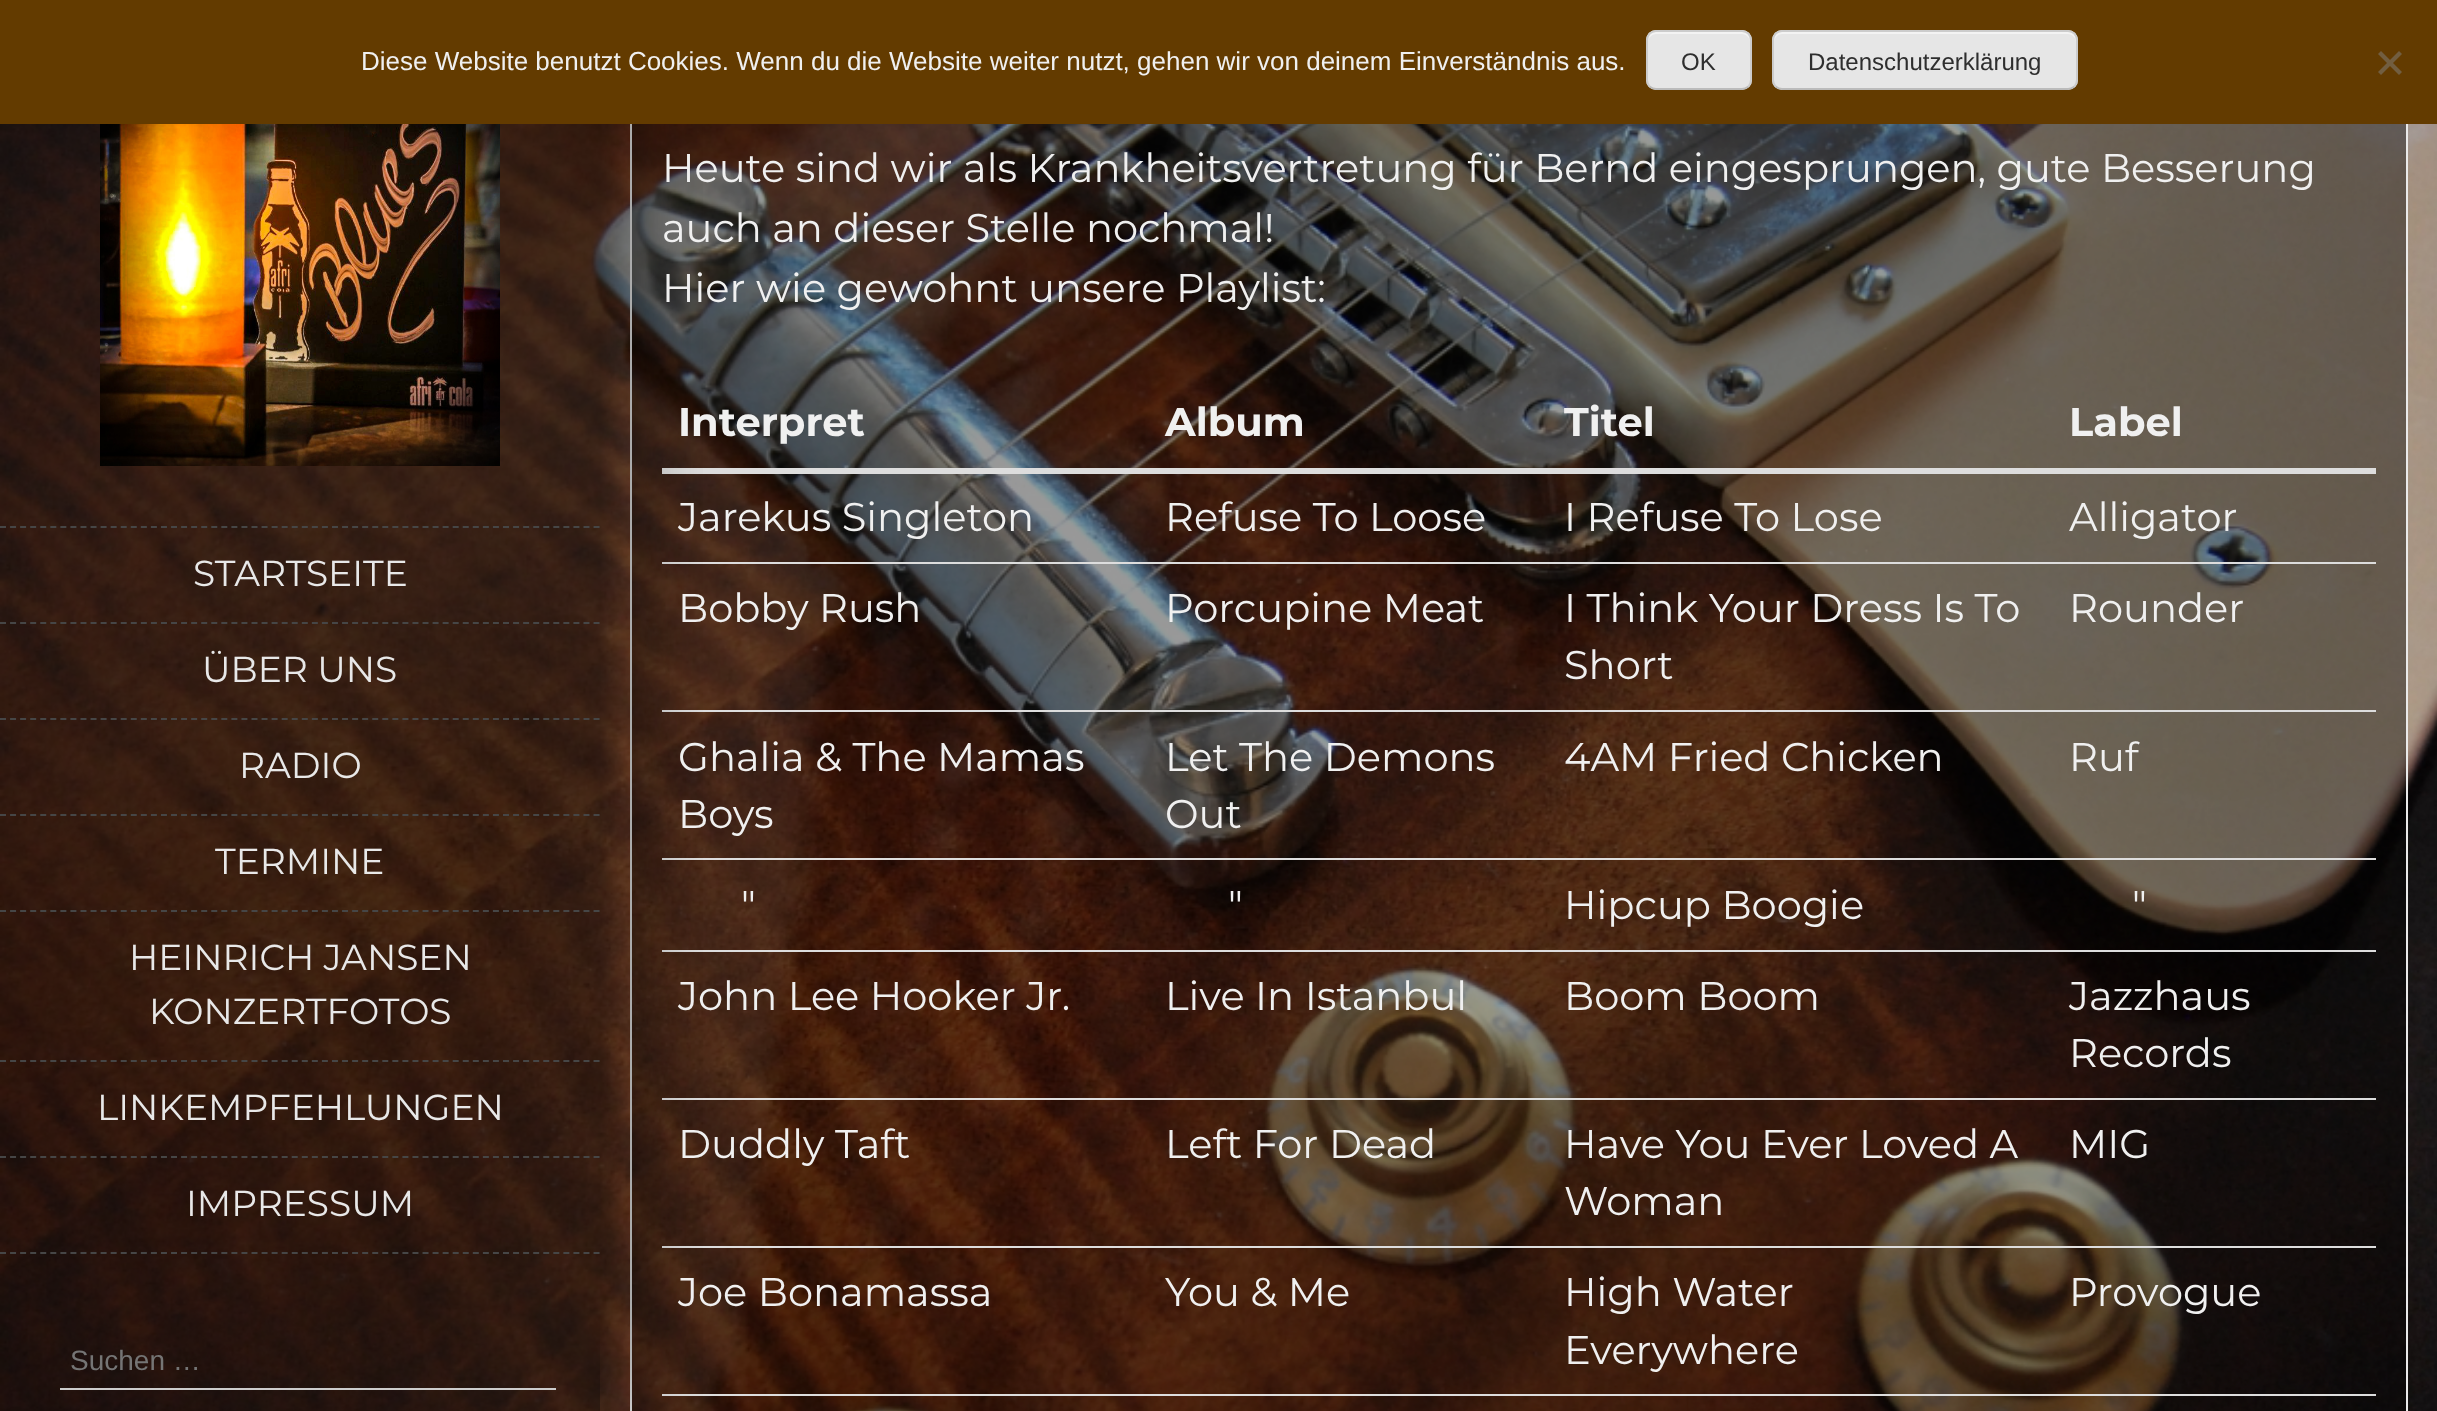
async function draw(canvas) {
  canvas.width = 2437
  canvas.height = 1411
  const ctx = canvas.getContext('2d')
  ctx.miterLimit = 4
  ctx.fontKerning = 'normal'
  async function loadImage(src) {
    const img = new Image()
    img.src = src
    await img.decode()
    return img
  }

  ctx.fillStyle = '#fff'
  ctx.fillRect(0, 0, 2437, 1411)
  ctx.drawImage(await loadImage('image0.png'), 0, 124, 2437, 1287)
  ctx.fillStyle = '#00000066'
  ctx.fillRect(632, 124, 1774, 1287)
  ctx.strokeStyle = '#eaeaea'
  ctx.lineWidth = 2
  ctx.strokeRect(631, -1, 1776, 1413)
  ctx.fillStyle = '#ddd'
  ctx.fillRect(662, 468, 1714, 4)
  ctx.fillRect(662, 472, 1714, 2)
  ctx.fillRect(662, 562, 1714, 2)
  ctx.fillRect(662, 710, 1714, 2)
  ctx.fillRect(662, 858, 1714, 2)
  ctx.fillRect(662, 950, 1714, 2)
  ctx.fillRect(662, 1098, 1714, 2)
  ctx.fillRect(662, 1246, 1714, 2)
  ctx.fillRect(662, 1394, 1714, 2)
  ctx.save()
  ctx.beginPath()
  ctx.rect(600, 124, 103, 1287)
  ctx.clip()
  ctx.fillStyle = '#000'
  ctx.filter = 'blur(50px)'
  ctx.beginPath()
  ctx.rect(0, 0, 600, 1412)
  ctx.fill()
  ctx.filter = 'none'
  ctx.restore()
  ctx.fillStyle = '#633b00'
  ctx.fillRect(0, 0, 2437, 124)
  ctx.font = '26px Liberation Sans'
  ctx.fillStyle = '#f0f0f0'
  ctx.fillText('Diese Website benutzt Cookies. Wenn du die Website weiter nutzt, gehen wir von deinem Einverständnis aus.', 361, 70)
  ctx.fillStyle = '#e6e6e6'
  ctx.beginPath()
  ctx.roundRect(1646, 30, 106, 60, 10)
  ctx.fill()
  ctx.fillStyle = '#f3f3f3'
  ctx.beginPath()
  ctx.moveTo(1656, 34)
  ctx.lineTo(1742, 34)
  ctx.bezierCurveTo(1746, 34, 1750, 38, 1750, 42)
  ctx.bezierCurveTo(1750, 29, 1738, 32, 1728, 32)
  ctx.lineTo(1670, 32)
  ctx.bezierCurveTo(1660, 32, 1648, 29, 1648, 42)
  ctx.bezierCurveTo(1648, 38, 1652, 34, 1656, 34)
  ctx.closePath()
  ctx.fill()
  ctx.beginPath()
  ctx.moveTo(1748.5, 86.5)
  ctx.bezierCurveTo(1746.5, 88, 1744.5, 89, 1742, 89)
  ctx.lineTo(1656, 89)
  ctx.bezierCurveTo(1653.5, 89, 1651.5, 88, 1649.5, 86.5)
  ctx.strokeStyle = '#bbb'
  ctx.stroke()
  ctx.beginPath()
  ctx.moveTo(1649.5, 86.5)
  ctx.bezierCurveTo(1648, 84.5, 1647, 82.5, 1647, 80)
  ctx.lineTo(1647, 40)
  ctx.bezierCurveTo(1647, 37.5, 1648, 35.5, 1649.5, 33.5)
  ctx.bezierCurveTo(1651.5, 32, 1653.5, 31, 1656, 31)
  ctx.lineTo(1742, 31)
  ctx.bezierCurveTo(1744.5, 31, 1746.5, 32, 1748.5, 33.5)
  ctx.bezierCurveTo(1750, 35.5, 1751, 37.5, 1751, 40)
  ctx.lineTo(1751, 80)
  ctx.bezierCurveTo(1751, 82.5, 1750, 84.5, 1748.5, 86.5)
  ctx.strokeStyle = '#ccc'
  ctx.stroke()
  ctx.font = '24px Liberation Sans'
  ctx.fillStyle = '#2e2e2e'
  ctx.fillText('OK', 1681, 70)
  ctx.fillStyle = '#e6e6e6'
  ctx.beginPath()
  ctx.roundRect(1772, 30, 306, 60, 10)
  ctx.fill()
  ctx.fillStyle = '#f3f3f3'
  ctx.beginPath()
  ctx.moveTo(1782, 34)
  ctx.lineTo(2068, 34)
  ctx.bezierCurveTo(2072, 34, 2076, 38, 2076, 42)
  ctx.lineTo(2076, 40)
  ctx.bezierCurveTo(2076, 36, 2072, 32, 2068, 32)
  ctx.lineTo(1782, 32)
  ctx.bezierCurveTo(1778, 32, 1774, 36, 1774, 40)
  ctx.lineTo(1774, 42)
  ctx.bezierCurveTo(1774, 38, 1778, 34, 1782, 34)
  ctx.closePath()
  ctx.fill()
  ctx.beginPath()
  ctx.moveTo(2074.5, 86.5)
  ctx.bezierCurveTo(2072.5, 88, 2070.5, 89, 2068, 89)
  ctx.lineTo(1782, 89)
  ctx.bezierCurveTo(1779.5, 89, 1777.5, 88, 1775.5, 86.5)
  ctx.strokeStyle = '#bbb'
  ctx.stroke()
  ctx.beginPath()
  ctx.moveTo(1775.5, 86.5)
  ctx.bezierCurveTo(1774, 84.5, 1773, 82.5, 1773, 80)
  ctx.lineTo(1773, 40)
  ctx.bezierCurveTo(1773, 37.5, 1774, 35.5, 1775.5, 33.5)
  ctx.bezierCurveTo(1777.5, 32, 1779.5, 31, 1782, 31)
  ctx.lineTo(2068, 31)
  ctx.bezierCurveTo(2070.5, 31, 2072.5, 32, 2074.5, 33.5)
  ctx.bezierCurveTo(2076, 35.5, 2077, 37.5, 2077, 40)
  ctx.lineTo(2077, 80)
  ctx.bezierCurveTo(2077, 82.5, 2076, 84.5, 2074.5, 86.5)
  ctx.strokeStyle = '#ccc'
  ctx.stroke()
  ctx.fillStyle = '#2e2e2e'
  ctx.fillText('Datenschutzerklärung', 1808, 70)
  ctx.fillStyle = '#725e40'
  ctx.beginPath()
  ctx.moveTo(2399, 51)
  ctx.lineTo(2402, 54)
  ctx.lineTo(2381, 75)
  ctx.lineTo(2378, 72)
  ctx.closePath()
  ctx.fill()
  ctx.beginPath()
  ctx.moveTo(2378, 54)
  ctx.lineTo(2381, 51)
  ctx.lineTo(2402, 72)
  ctx.lineTo(2399, 75)
  ctx.closePath()
  ctx.fill()
  ctx.fillStyle = '#00000080'
  ctx.fillRect(0, 124, 600, 1287)
  ctx.drawImage(await loadImage('image1.png'), 100, 124, 400, 342)
  ctx.beginPath()
  ctx.moveTo(0, 527)
  ctx.lineTo(600, 527)
  ctx.strokeStyle = '#464646'
  ctx.setLineDash([6, 4.06])
  ctx.stroke()
  ctx.font = '36px Montserrat'
  ctx.fillStyle = '#e8e8e8'
  ctx.fillText('STARTSEITE', 193, 586)
  ctx.beginPath()
  ctx.moveTo(0, 623)
  ctx.lineTo(600, 623)
  ctx.stroke()
  ctx.fillText('ÜBER UNS', 202, 682)
  ctx.beginPath()
  ctx.moveTo(0, 719)
  ctx.lineTo(600, 719)
  ctx.stroke()
  ctx.fillText('RADIO', 239, 778)
  ctx.beginPath()
  ctx.moveTo(0, 815)
  ctx.lineTo(600, 815)
  ctx.stroke()
  ctx.fillText('TERMINE', 215, 874)
  ctx.beginPath()
  ctx.moveTo(0, 911)
  ctx.lineTo(600, 911)
  ctx.stroke()
  ctx.fillText('HEINRICH JANSEN', 129, 970)
  ctx.fillText('KONZERTFOTOS', 149, 1024)
  ctx.beginPath()
  ctx.moveTo(0, 1061)
  ctx.lineTo(600, 1061)
  ctx.stroke()
  ctx.fillText('LINKEMPFEHLUNGEN', 97, 1120)
  ctx.beginPath()
  ctx.moveTo(0, 1157)
  ctx.lineTo(600, 1157)
  ctx.stroke()
  ctx.beginPath()
  ctx.moveTo(0, 1253)
  ctx.lineTo(600, 1253)
  ctx.stroke()
  ctx.fillText('IMPRESSUM', 186, 1216)
  ctx.fillStyle = '#ccc'
  ctx.fillRect(60, 1388, 496, 2)
  ctx.font = '28px Liberation Sans'
  ctx.fillStyle = '#757575'
  ctx.fillText('Suchen …', 70, 1370)
  ctx.font = '40px Montserrat'
  ctx.fillStyle = '#f0f0f0'
  ctx.fillText('Heute sind wir als Krankheitsvertretung für Bernd eingesprungen, gute Besserung', 662, 182)
  ctx.fillText('auch an dieser Stelle nochmal!', 662, 242)
  ctx.fillText('Hier wie gewohnt unsere Playlist:', 662, 302)
  ctx.font = 'bold 40px Montserrat'
  ctx.fillText('Interpret', 678, 436)
  ctx.fillText('Album', 1165, 436)
  ctx.fillText('Titel', 1564, 436)
  ctx.fillText('Label', 2069, 436)
  ctx.font = '40px Montserrat'
  ctx.fillText('Jarekus Singleton', 678, 531)
  ctx.fillText('Refuse To Loose', 1165, 531)
  ctx.fillText('I Refuse To Lose', 1564, 531)
  ctx.fillText('Alligator', 2069, 531)
  ctx.fillText('Bobby Rush', 678, 622)
  ctx.fillText('Porcupine Meat', 1165, 622)
  ctx.fillText('I Think Your Dress Is To', 1564, 622)
  ctx.fillText('Short', 1564, 679)
  ctx.fillText('Rounder', 2069, 622)
  ctx.fillText('Ghalia & The Mamas', 678, 771)
  ctx.fillText('Boys', 678, 828)
  ctx.fillText('Let The Demons', 1165, 771)
  ctx.fillText('Out', 1165, 828)
  ctx.fillText('4AM Fried Chicken', 1564, 771)
  ctx.fillText('Ruf', 2069, 771)
  ctx.fillText('"', 741, 919)
  ctx.fillText('"', 1228, 919)
  ctx.fillText('Hipcup Boogie', 1564, 919)
  ctx.fillText('"', 2132, 919)
  ctx.fillText('John Lee Hooker Jr.', 678, 1010)
  ctx.fillText('Live In Istanbul', 1165, 1010)
  ctx.fillText('Boom Boom', 1564, 1010)
  ctx.fillText('Jazzhaus', 2069, 1010)
  ctx.fillText('Records', 2069, 1067)
  ctx.fillText('Duddly Taft', 678, 1158)
  ctx.fillText('Left For Dead', 1165, 1158)
  ctx.fillText('Have You Ever Loved A', 1564, 1158)
  ctx.fillText('Woman', 1564, 1215)
  ctx.fillText('MIG', 2069, 1158)
  ctx.fillText('Joe Bonamassa', 678, 1306)
  ctx.fillText('You & Me', 1165, 1306)
  ctx.fillText('High Water', 1564, 1306)
  ctx.fillText('Everywhere', 1564, 1364)
  ctx.fillText('Provogue', 2069, 1306)
}

draw(document.querySelector('canvas'))
